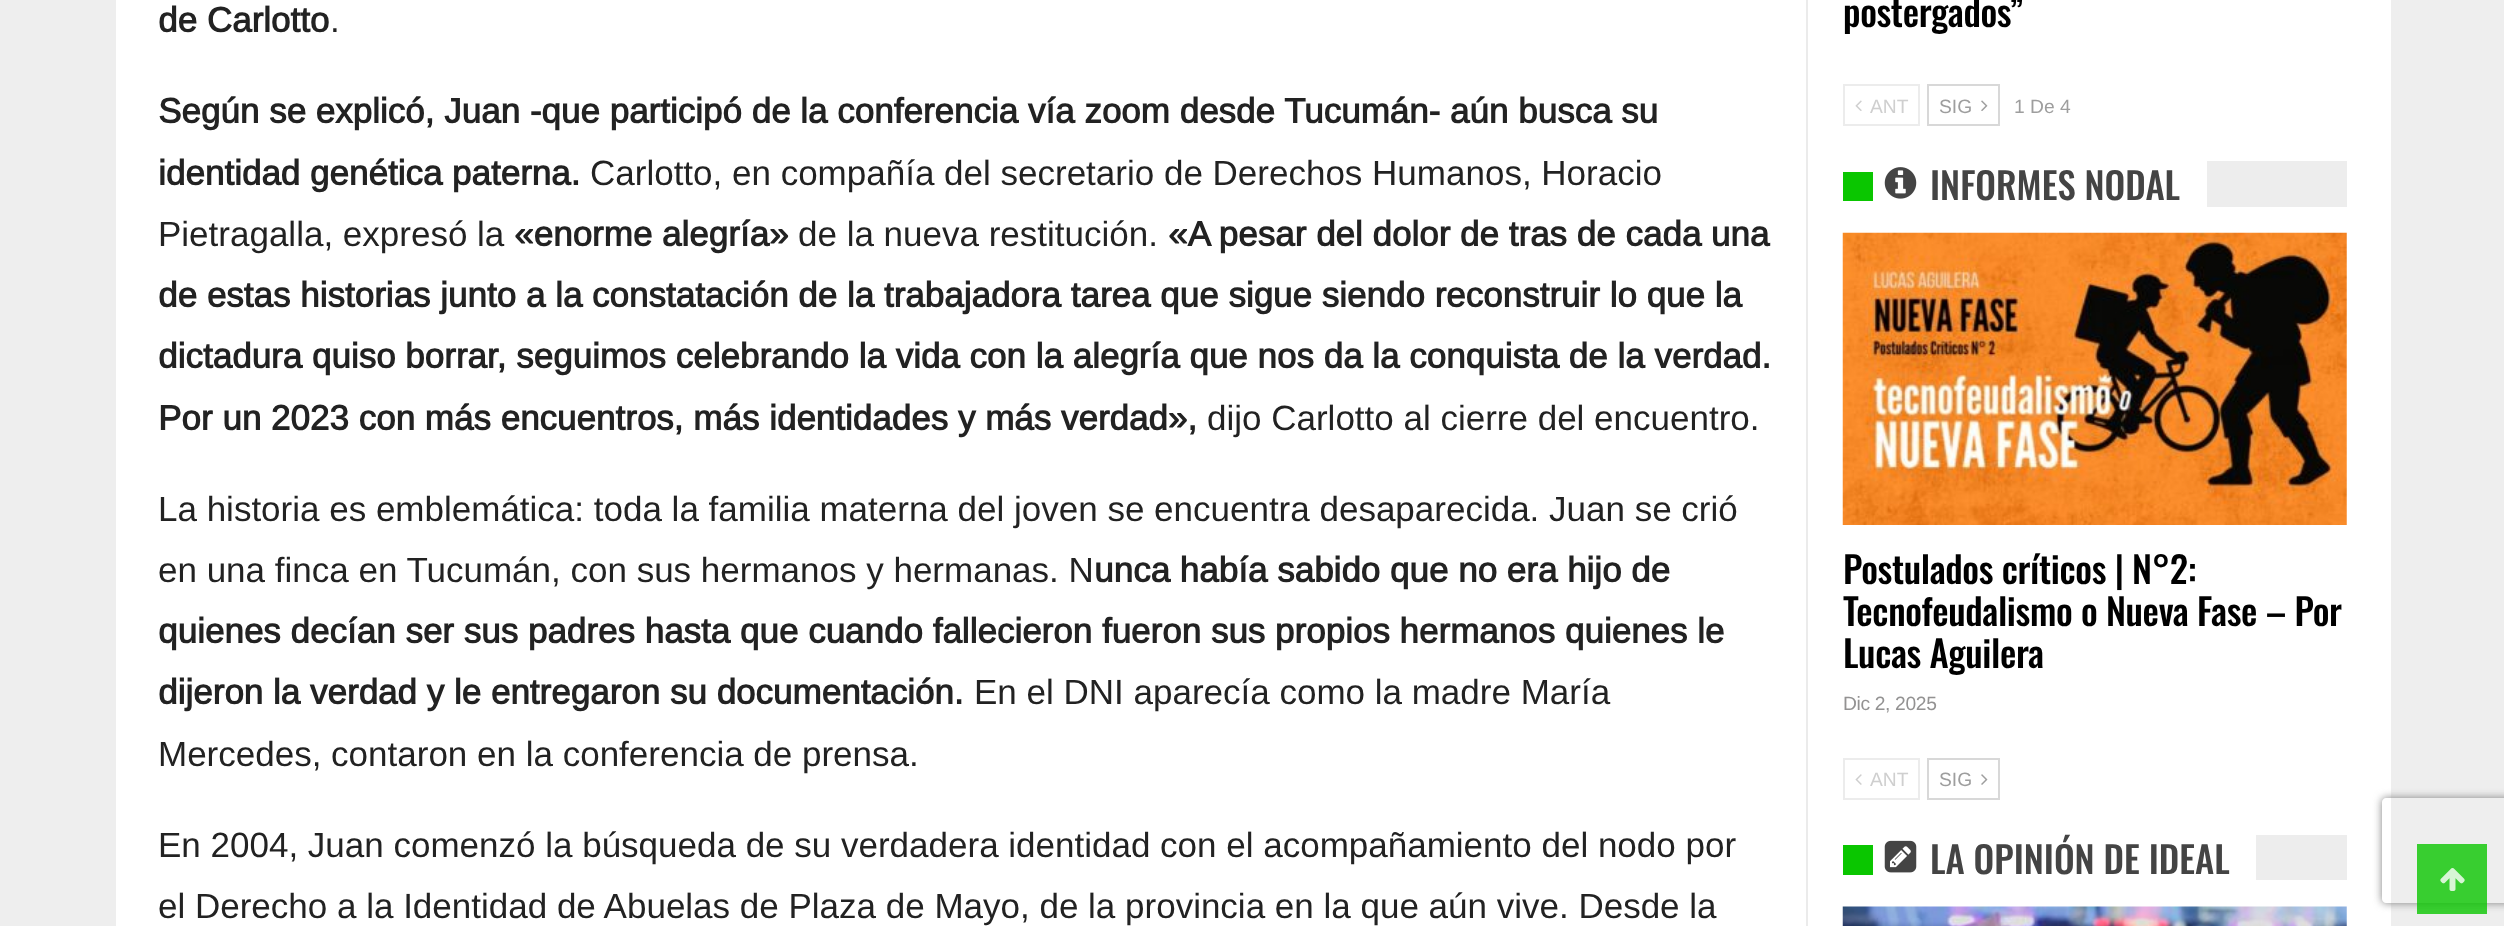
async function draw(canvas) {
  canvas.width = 2504
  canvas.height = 926
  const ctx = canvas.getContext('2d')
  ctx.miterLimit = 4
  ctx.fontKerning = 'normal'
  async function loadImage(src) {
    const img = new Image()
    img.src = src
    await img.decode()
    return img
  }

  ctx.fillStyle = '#eee'
  ctx.fillRect(0, 0, 2504, 926)
  ctx.fillStyle = '#fff'
  ctx.fillRect(116, 0, 2275, 926)
  ctx.font = 'bold 35px Arimo'
  ctx.fillStyle = '#222'
  ctx.fillText('de Carlotto', 158, 32)
  ctx.font = '35px Arimo'
  ctx.fillText('.', 330, 32)
  ctx.font = 'bold 35px Arimo'
  ctx.fillText('Según se explicó, Juan -que participó de la conferencia vía zoom desde Tucumán- aún busca su', 158, 123)
  ctx.fillText('identidad genética paterna.', 158, 185)
  ctx.font = '35px Arimo'
  ctx.fillText('Carlotto, en compañía del secretario de Derechos Humanos, Horacio', 590, 185)
  ctx.fillText('Pietragalla, expresó la', 158, 246)
  ctx.font = 'bold 35px Arimo'
  ctx.fillText('«enorme alegría»', 514, 246)
  ctx.font = '35px Arimo'
  ctx.fillText('de la nueva restitución.', 798, 246)
  ctx.font = 'bold 35px Arimo'
  ctx.fillText('«A pesar del dolor de tras de cada una', 1168, 246)
  ctx.fillText('de estas historias junto a la constatación de la trabajadora tarea que sigue siendo reconstruir lo que la', 158, 307)
  ctx.fillText('dictadura quiso borrar, seguimos celebrando la vida con la alegría que nos da la conquista de la verdad.', 158, 368)
  ctx.fillText('Por un 2023 con más encuentros, más identidades y más verdad»,', 158, 430)
  ctx.font = '35px Arimo'
  ctx.fillText('dijo Carlotto al cierre del encuentro.', 1207, 430)
  ctx.fillText('La historia es emblemática: toda la familia materna del joven se encuentra desaparecida. Juan se crió', 158, 521)
  ctx.fillText('en una finca en Tucumán, con sus hermanos y hermanas. N', 158, 582)
  ctx.font = 'bold 35px Arimo'
  ctx.fillText('unca había sabido que no era hijo de', 1094, 582)
  ctx.fillText('quienes decían ser sus padres hasta que cuando fallecieron fueron sus propios hermanos quienes le', 158, 643)
  ctx.fillText('dijeron la verdad y le entregaron su documentación.', 158, 704)
  ctx.font = '35px Arimo'
  ctx.fillText('En el DNI aparecía como la madre María', 974, 704)
  ctx.fillText('Mercedes, contaron en la conferencia de prensa.', 158, 766)
  ctx.fillText('En 2004, Juan comenzó la búsqueda de su verdadera identidad con el acompañamiento del nodo por', 158, 857)
  ctx.fillText('el Derecho a la Identidad de Abuelas de Plaza de Mayo, de la provincia en la que aún vive. Desde la', 158, 918)
  ctx.fillStyle = '#ebebeb'
  ctx.fillRect(1806, 0, 2, 926)
  ctx.letterSpacing = '-0.35px'
  ctx.font = '500 36.75px Oswald'
  ctx.fillStyle = '#000'
  ctx.fillText('postergados”', 1843, 27)
  ctx.strokeStyle = '#ececec'
  ctx.lineWidth = 2
  ctx.strokeRect(1844, 85, 75, 40)
  ctx.drawImage(await loadImage('image0.png'), 1855, 100, 7, 11)
  ctx.letterSpacing = '0px'
  ctx.font = '19.25px Arimo'
  ctx.fillStyle = '#cfcfcf'
  ctx.fillText('ANT', 1870, 113)
  ctx.strokeStyle = '#d8d8d8'
  ctx.strokeRect(1928, 85, 71, 40)
  ctx.fillStyle = '#9e9e9e'
  ctx.fillText('SIG', 1939, 113)
  ctx.drawImage(await loadImage('image1.png'), 1981, 100, 7, 11)
  ctx.fillText('1 De 4', 2014, 113)
  ctx.fillStyle = '#0ac600'
  ctx.fillRect(1843, 172, 30, 29)
  ctx.drawImage(await loadImage('image2.png'), 1884, 167, 33, 32)
  ctx.font = '500 36.75px Oswald'
  ctx.fillStyle = '#444'
  ctx.fillText('INFORMES NODAL', 1930, 200)
  ctx.fillStyle = '#ededed'
  ctx.fillRect(2207, 161, 140, 46)
  ctx.drawImage(await loadImage('image3.png'), 1842, 232, 505, 293)
  ctx.letterSpacing = '-0.35px'
  ctx.fillStyle = '#000'
  ctx.fillText('Postulados críticos | N°2:', 1843, 584)
  ctx.fillText('Tecnofeudalismo o Nueva Fase – Por', 1843, 626)
  ctx.fillText('Lucas Aguilera', 1843, 668)
  ctx.font = '19.25px Arimo'
  ctx.fillStyle = '#939292'
  ctx.fillText('Dic 2, 2025', 1843, 710)
  ctx.strokeStyle = '#ececec'
  ctx.strokeRect(1844, 759, 75, 40)
  ctx.drawImage(await loadImage('image4.png'), 1855, 774, 7, 11)
  ctx.letterSpacing = '0px'
  ctx.fillStyle = '#cfcfcf'
  ctx.fillText('ANT', 1870, 786)
  ctx.strokeStyle = '#d8d8d8'
  ctx.strokeRect(1928, 759, 71, 40)
  ctx.fillStyle = '#9e9e9e'
  ctx.fillText('SIG', 1939, 786)
  ctx.drawImage(await loadImage('image5.png'), 1981, 774, 7, 11)
  ctx.fillStyle = '#0ac600'
  ctx.fillRect(1843, 845, 30, 30)
  ctx.drawImage(await loadImage('image6.png'), 1884, 840, 33, 33)
  ctx.font = '500 36.75px Oswald'
  ctx.fillStyle = '#444'
  ctx.fillText('LA OPINIÓN DE IDEAL', 1930, 874)
  ctx.fillStyle = '#ededed'
  ctx.fillRect(2256, 835, 91, 45)
  ctx.drawImage(await loadImage('image7.png'), 1842, 906, 505, 20)
  ctx.save()
  ctx.beginPath()
  ctx.moveTo(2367, 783)
  ctx.lineTo(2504, 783)
  ctx.lineTo(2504, 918)
  ctx.lineTo(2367, 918)
  ctx.closePath()
  ctx.moveTo(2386, 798)
  ctx.lineTo(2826, 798)
  ctx.bezierCurveTo(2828, 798, 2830, 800, 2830, 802)
  ctx.lineTo(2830, 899)
  ctx.bezierCurveTo(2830, 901, 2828, 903, 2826, 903)
  ctx.lineTo(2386, 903)
  ctx.bezierCurveTo(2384, 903, 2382, 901, 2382, 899)
  ctx.lineTo(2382, 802)
  ctx.bezierCurveTo(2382, 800, 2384, 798, 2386, 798)
  ctx.closePath()
  ctx.clip('evenodd')
  ctx.fillStyle = '#808080'
  ctx.filter = 'blur(4.5px)'
  ctx.beginPath()
  ctx.roundRect(2382, 798, 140, 105, 4)
  ctx.fill()
  ctx.filter = 'none'
  ctx.restore()
  ctx.fillStyle = '#0ac600cc'
  ctx.fillRect(2417, 844, 70, 70)
  ctx.drawImage(await loadImage('image8.png'), 2440, 868, 25, 23)
}

draw(document.querySelector('canvas'))
